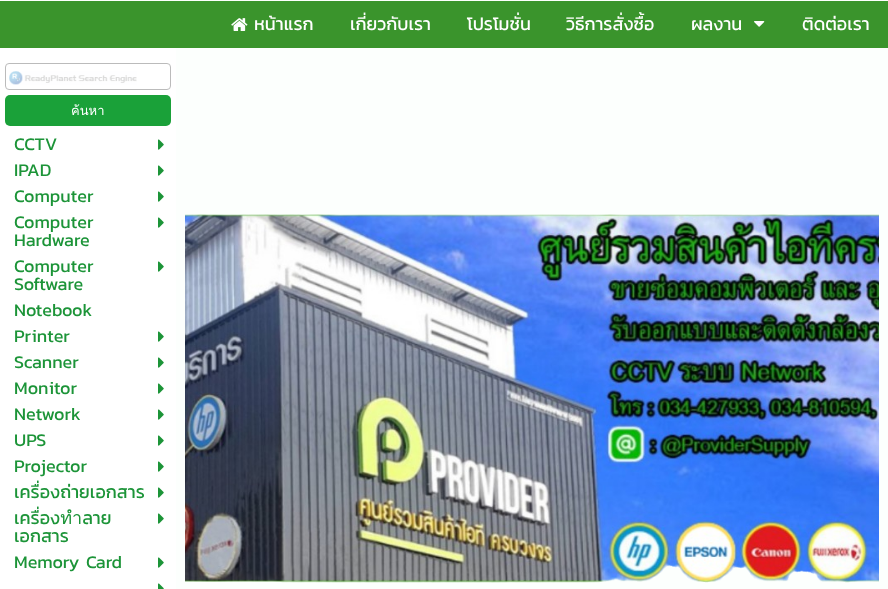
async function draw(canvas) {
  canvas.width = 888
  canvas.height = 589
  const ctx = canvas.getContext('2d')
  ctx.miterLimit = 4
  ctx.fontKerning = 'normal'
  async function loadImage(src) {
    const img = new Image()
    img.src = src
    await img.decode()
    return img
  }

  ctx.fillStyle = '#fcfffd'
  ctx.fillRect(0, 0, 888, 589)
  ctx.fillStyle = '#3a942c'
  ctx.fillRect(0, 1, 888, 47)
  ctx.drawImage(await loadImage('image0.png'), 231, 18, 17, 13)
  ctx.font = '18px Kanit'
  ctx.fillStyle = '#fff'
  ctx.fillText('หน้าแรก', 254, 30)
  ctx.fillText('เกี่ยวกับเรา', 350, 30)
  ctx.fillText('โปรโมชั่น', 467, 30)
  ctx.fillText('วิธีการสั่งซื้อ', 566, 30)
  ctx.fillText('ผลงาน', 691, 30)
  ctx.drawImage(await loadImage('image1.png'), 754, 21, 11, 6)
  ctx.fillText('ติดต่อเรา', 802, 30)
  ctx.fillRect(0, 48, 176, 541)
  ctx.drawImage(await loadImage('image2.png'), 9, 71, 128, 14)
  ctx.beginPath()
  ctx.roundRect(5.5, 63.5, 165, 26, 3.5)
  ctx.strokeStyle = '#bbb'
  ctx.stroke()
  ctx.fillStyle = '#1aa139'
  ctx.beginPath()
  ctx.roundRect(5, 95, 166, 31, 5)
  ctx.fill()
  ctx.font = '13px Loma'
  ctx.fillStyle = '#fff'
  ctx.fillText('ค้นหา', 71, 115)
  ctx.font = '18px Kanit'
  ctx.fillStyle = '#1c9438'
  ctx.fillText('CCTV', 14, 150)
  ctx.drawImage(await loadImage('image3.png'), 158, 139, 6, 11)
  ctx.fillText('IPAD', 14, 176)
  ctx.drawImage(await loadImage('image3.png'), 158, 165, 6, 11)
  ctx.fillText('Computer', 14, 202)
  ctx.drawImage(await loadImage('image3.png'), 158, 191, 6, 11)
  ctx.fillText('Computer', 14, 228)
  ctx.fillText('Hardware', 14, 246)
  ctx.drawImage(await loadImage('image3.png'), 158, 217, 6, 11)
  ctx.fillText('Computer', 14, 272)
  ctx.fillText('Software', 14, 290)
  ctx.drawImage(await loadImage('image3.png'), 158, 261, 6, 11)
  ctx.fillText('Notebook', 14, 316)
  ctx.fillText('Printer', 14, 342)
  ctx.drawImage(await loadImage('image3.png'), 158, 331, 6, 11)
  ctx.fillText('Scanner', 14, 368)
  ctx.drawImage(await loadImage('image3.png'), 158, 357, 6, 11)
  ctx.fillText('Monitor', 14, 394)
  ctx.drawImage(await loadImage('image3.png'), 158, 383, 6, 11)
  ctx.fillText('Network', 14, 420)
  ctx.drawImage(await loadImage('image3.png'), 158, 409, 6, 11)
  ctx.fillText('UPS', 14, 446)
  ctx.drawImage(await loadImage('image3.png'), 158, 435, 6, 11)
  ctx.fillText('Projector', 14, 472)
  ctx.drawImage(await loadImage('image3.png'), 158, 461, 6, 11)
  ctx.fillText('เครื่องถ่ายเอกสาร', 14, 498)
  ctx.drawImage(await loadImage('image3.png'), 158, 487, 6, 11)
  ctx.fillText('เครื่องทำลาย', 14, 524)
  ctx.fillText('เอกสาร', 14, 542)
  ctx.drawImage(await loadImage('image3.png'), 158, 513, 6, 11)
  ctx.fillText('Memory Card', 14, 568)
  ctx.drawImage(await loadImage('image3.png'), 158, 557, 6, 11)
  ctx.drawImage(await loadImage('image4.png'), 158, 583, 6, 6)
  ctx.drawImage(await loadImage('image5.png'), 185, 214, 694, 369)
}

draw(document.querySelector('canvas'))
